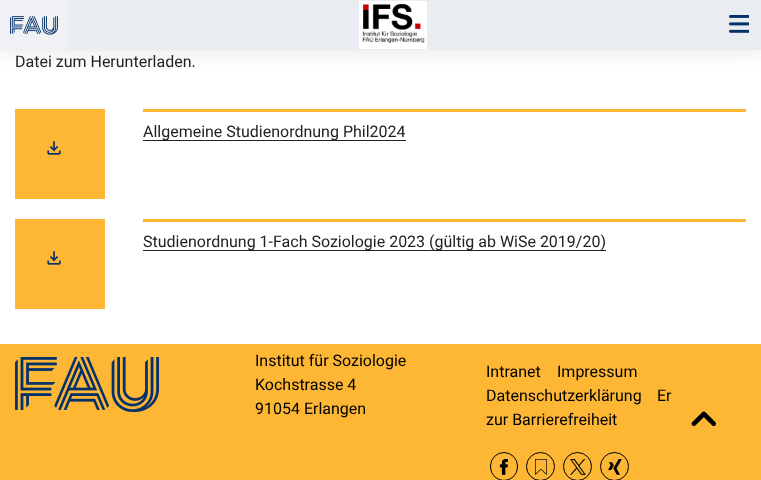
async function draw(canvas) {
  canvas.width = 761
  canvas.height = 480
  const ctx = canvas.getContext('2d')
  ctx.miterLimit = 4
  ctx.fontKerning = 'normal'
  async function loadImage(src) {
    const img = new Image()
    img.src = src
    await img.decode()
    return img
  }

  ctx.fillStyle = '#fff'
  ctx.fillRect(0, 0, 761, 480)
  ctx.fillStyle = '#0000001c'
  ctx.filter = 'blur(10.5px)'
  ctx.beginPath()
  ctx.rect(0, 0, 761, 50)
  ctx.fill()
  ctx.filter = 'none'
  ctx.fillStyle = '#e9edf2'
  ctx.fillRect(68, 0, 693, 50)
  ctx.fillStyle = '#eff1f4'
  ctx.fillRect(0, 0, 68, 50)
  ctx.drawImage(await loadImage('image0.png'), 10, 16, 48, 19)
  ctx.drawImage(await loadImage('image1.png'), 359, 1, 68, 48)
  ctx.drawImage(await loadImage('image2.png'), 729, 15, 20, 18)
  ctx.font = '16px Roboto'
  ctx.fillStyle = '#222'
  ctx.fillText('Datei zum Herunterladen.', 15, 67)
  ctx.fillStyle = '#fdb735'
  ctx.fillRect(15, 109, 90, 90)
  ctx.drawImage(await loadImage('image3.png'), 47, 141, 14, 14)
  ctx.fillRect(143, 109, 603, 3)
  ctx.fillStyle = '#222'
  ctx.fillRect(143, 140, 263, 1)
  ctx.fillText('Allgemeine Studienordnung Phil2024', 143, 137)
  ctx.fillStyle = '#fdb735'
  ctx.fillRect(15, 219, 90, 90)
  ctx.drawImage(await loadImage('image3.png'), 47, 251, 14, 14)
  ctx.fillRect(143, 219, 603, 3)
  ctx.fillStyle = '#222'
  ctx.fillRect(143, 250, 463, 1)
  ctx.fillText('Studienordnung 1-Fach Soziologie 2023 (gültig ab WiSe 2019/20)', 143, 247)
  ctx.fillStyle = '#fdb735'
  ctx.fillRect(0, 344, 761, 136)
  ctx.drawImage(await loadImage('image4.png'), 15, 357, 144, 55)
  ctx.fillStyle = '#000'
  ctx.fillText('Institut für Soziologie', 255, 366)
  ctx.fillText('Kochstrasse 4', 255, 390)
  ctx.fillText('91054 Erlangen', 255, 414)
  ctx.fillText('Intranet', 486, 377)
  ctx.fillText('Impressum', 557, 377)
  ctx.fillText('Datenschutzerklärung', 486, 401)
  ctx.fillText('Er', 657, 401)
  ctx.fillText('zur Barrierefreiheit', 486, 425)
  ctx.beginPath()
  ctx.roundRect(490.5, 452.5, 27, 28, 13.5)
  ctx.strokeStyle = '#000'
  ctx.stroke()
  ctx.drawImage(await loadImage('image5.png'), 499, 459, 9, 16)
  ctx.beginPath()
  ctx.arc(540.5, 466.5, 14, 0, 2 * Math.PI)
  ctx.stroke()
  ctx.drawImage(await loadImage('image6.png'), 535, 459, 12, 16)
  ctx.beginPath()
  ctx.arc(577.5, 466.5, 14, 0, 2 * Math.PI)
  ctx.stroke()
  ctx.drawImage(await loadImage('image7.png'), 570, 459, 16, 16)
  ctx.beginPath()
  ctx.arc(614.5, 466.5, 14, 0, 2 * Math.PI)
  ctx.stroke()
  ctx.drawImage(await loadImage('image8.png'), 608, 459, 14, 16)
  ctx.drawImage(await loadImage('image9.png'), 691, 411, 25, 16)
}

draw(document.querySelector('canvas'))
